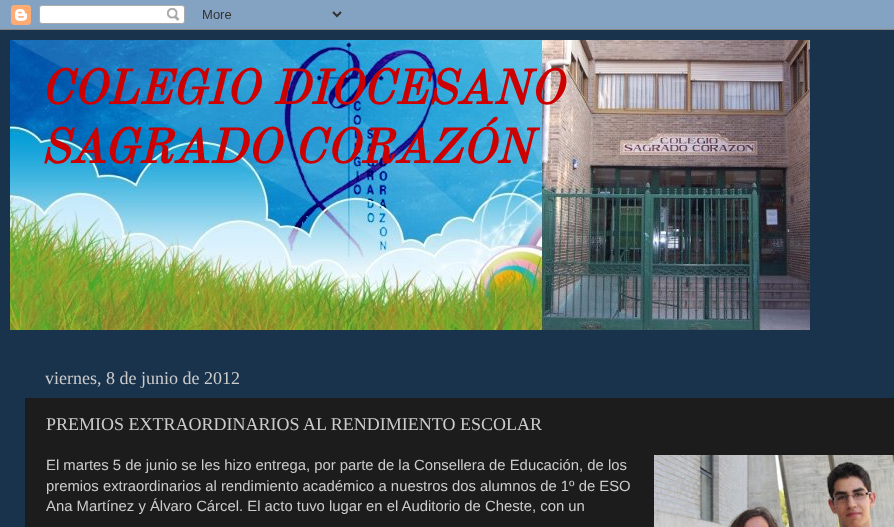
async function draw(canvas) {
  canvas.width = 894
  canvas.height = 527
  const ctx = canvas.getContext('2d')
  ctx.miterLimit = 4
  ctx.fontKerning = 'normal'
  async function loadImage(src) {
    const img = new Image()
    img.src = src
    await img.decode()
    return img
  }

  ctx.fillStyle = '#369'
  ctx.fillRect(0, 0, 894, 527)
  ctx.fillStyle = '#00000026'
  ctx.filter = 'blur(1.5px)'
  ctx.beginPath()
  ctx.rect(0, 30, 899, 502)
  ctx.fill()
  ctx.filter = 'none'
  ctx.drawImage(await loadImage('image0.png'), 0, 0, 894, 30)
  ctx.fillStyle = '#1a334c'
  ctx.fillRect(0, 30, 894, 497)
  ctx.drawImage(await loadImage('image1.png'), 10, 40, 800, 290)
  ctx.font = 'italic bold 48px Old Standard TT'
  ctx.fillStyle = '#c00'
  ctx.fillText('COLEGIO DIOCESANO', 40, 104)
  ctx.fillText('SAGRADO CORAZÓN', 40, 163)
  ctx.font = '18px Liberation Serif'
  ctx.fillStyle = '#ccc'
  ctx.fillText('viernes, 8 de junio de 2012', 45, 384)
  ctx.fillStyle = '#1c1c1c'
  ctx.fillRect(25, 398, 869, 129)
  ctx.fillStyle = '#ccc'
  ctx.fillText('PREMIOS EXTRAORDINARIOS AL RENDIMIENTO ESCOLAR', 46, 430)
  ctx.font = '14.85px Liberation Sans'
  ctx.fillText('El martes 5 de junio se les hizo entrega, por parte de la Consellera de Educación, de los', 46, 470)
  ctx.drawImage(await loadImage('image2.png'), 654, 455, 240, 72)
  ctx.fillText('premios extraordinarios al rendimiento académico a nuestros dos alumnos de 1º de ESO', 46, 491)
  ctx.fillText('Ana Martínez y Álvaro Cárcel. El acto tuvo lugar en el Auditorio de Cheste, con un', 46, 511)
}

draw(document.querySelector('canvas'))
